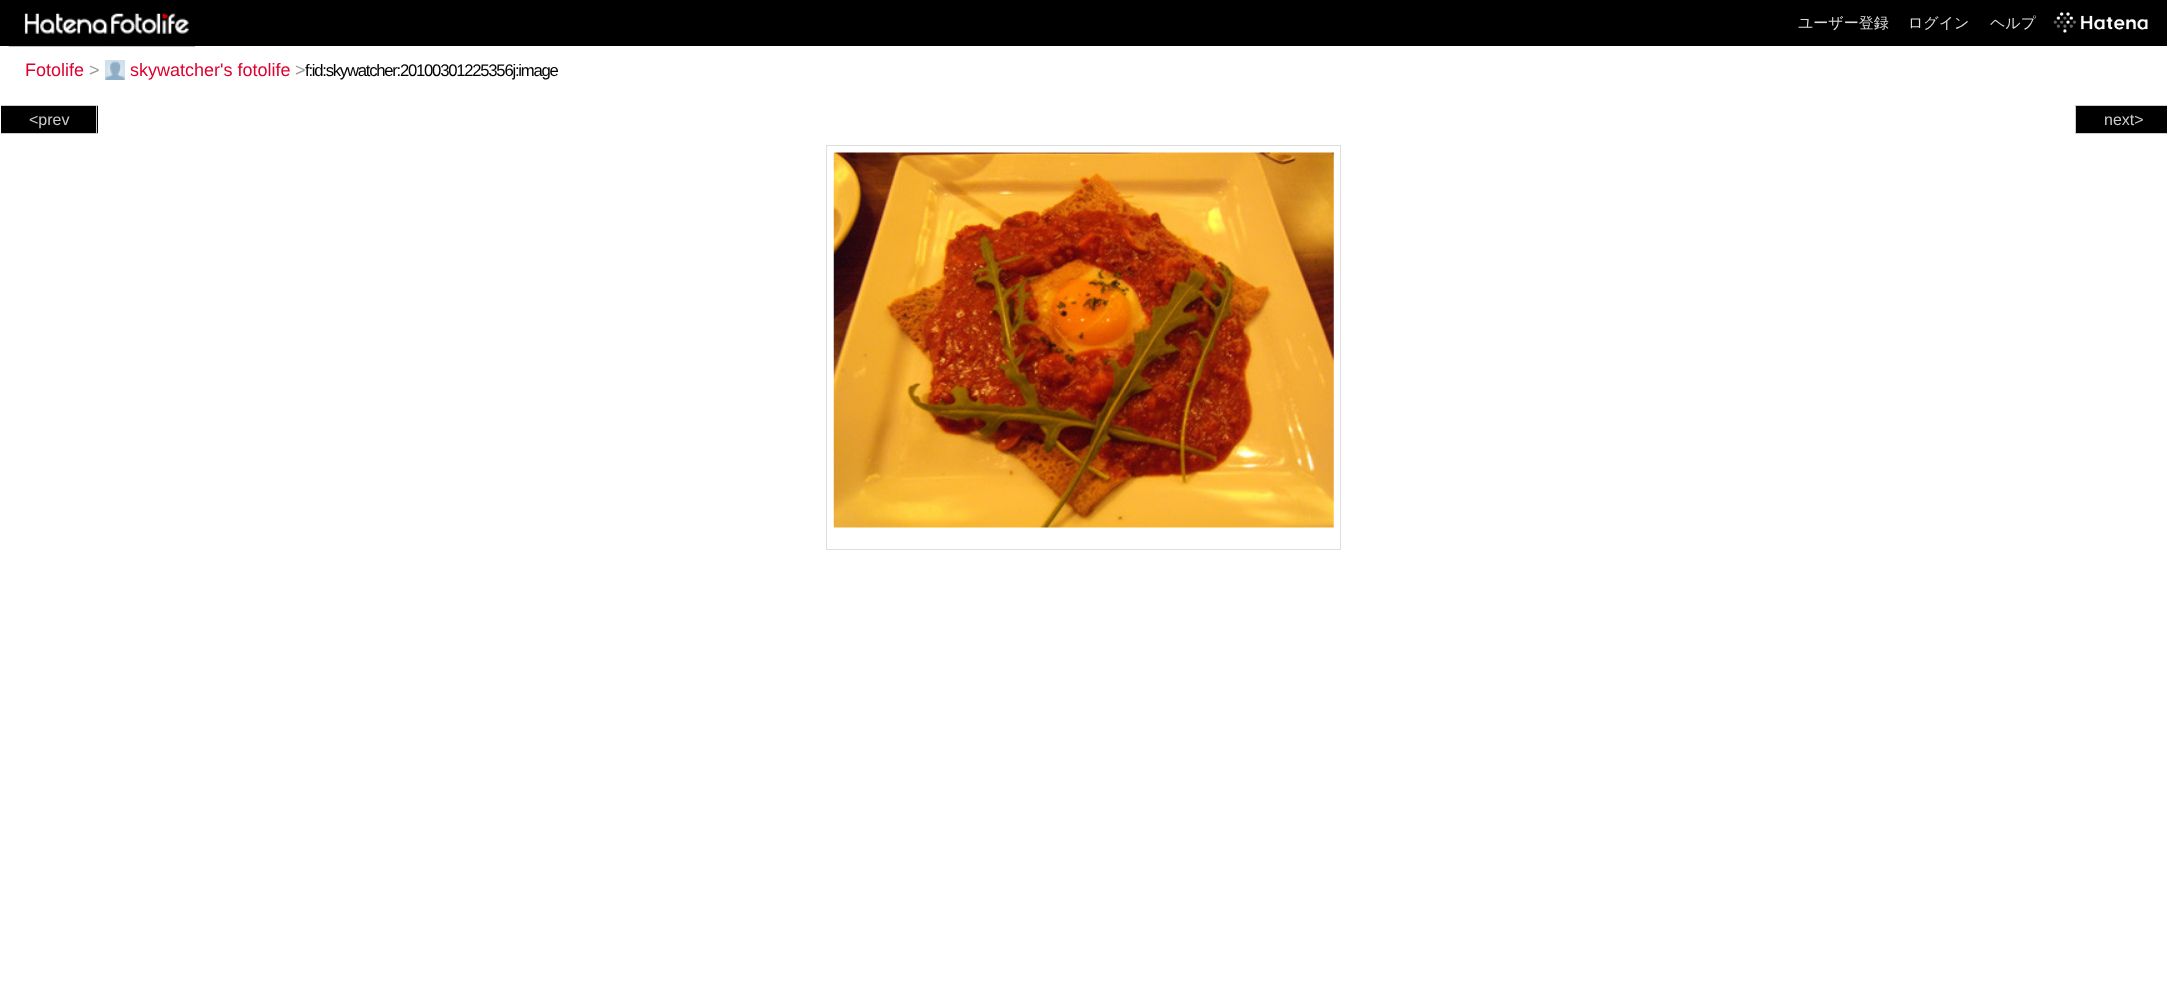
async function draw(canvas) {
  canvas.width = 2167
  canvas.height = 988
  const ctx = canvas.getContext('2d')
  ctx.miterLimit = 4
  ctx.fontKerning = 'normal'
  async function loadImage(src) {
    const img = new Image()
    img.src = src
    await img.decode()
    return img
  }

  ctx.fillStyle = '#fff'
  ctx.fillRect(0, 0, 2167, 988)
  ctx.fillStyle = '#000'
  ctx.fillRect(0, 0, 2167, 46)
  ctx.drawImage(await loadImage('image0.png'), 8, 13, 104, 34)
  ctx.drawImage(await loadImage('image1.png'), 111, 13, 84, 34)
  ctx.font = '500 15px WenQuanYi Zen Hei'
  ctx.fillStyle = '#ddd'
  ctx.fillText('ユーザー登録', 1798, 28)
  ctx.fillText('ログイン', 1908, 28)
  ctx.fillText('ヘルプ', 1990, 28)
  ctx.drawImage(await loadImage('image2.png'), 2053, 12, 95, 21)
  ctx.font = '18px Liberation Sans'
  ctx.fillStyle = '#de002f'
  ctx.fillText('Fotolife', 25, 76)
  ctx.fillStyle = '#999'
  ctx.fillText('>', 89, 76)
  ctx.drawImage(await loadImage('image3.png'), 105, 60, 20, 20)
  ctx.fillStyle = '#de002f'
  ctx.fillText('skywatcher\'s fotolife', 130, 76)
  ctx.fillStyle = '#999'
  ctx.fillText('>', 295, 76)
  ctx.letterSpacing = '-1.25px'
  ctx.font = '16.7px Liberation Sans'
  ctx.fillStyle = '#000'
  ctx.fillText('f:id:skywatcher:20100301225356j:image', 305, 76)
  ctx.fillRect(1, 106, 97, 27)
  ctx.fillStyle = '#ccc'
  ctx.fillRect(1, 105, 97, 1)
  ctx.fillRect(96, 105, 1, 29)
  ctx.fillRect(1, 133, 97, 1)
  ctx.letterSpacing = '0px'
  ctx.font = '16px Liberation Sans'
  ctx.fillText('<prev', 29, 125)
  ctx.fillStyle = '#000'
  ctx.fillRect(2076, 106, 91, 27)
  ctx.fillStyle = '#ccc'
  ctx.fillRect(2075, 105, 92, 1)
  ctx.fillRect(2075, 133, 92, 1)
  ctx.fillRect(2075, 105, 1, 29)
  ctx.fillText('next>', 2104, 125)
  ctx.strokeStyle = '#dedede'
  ctx.strokeRect(826.5, 145.5, 514, 404)
  ctx.drawImage(await loadImage('image4.png'), 833, 152, 501, 376)
}

draw(document.querySelector('canvas'))
